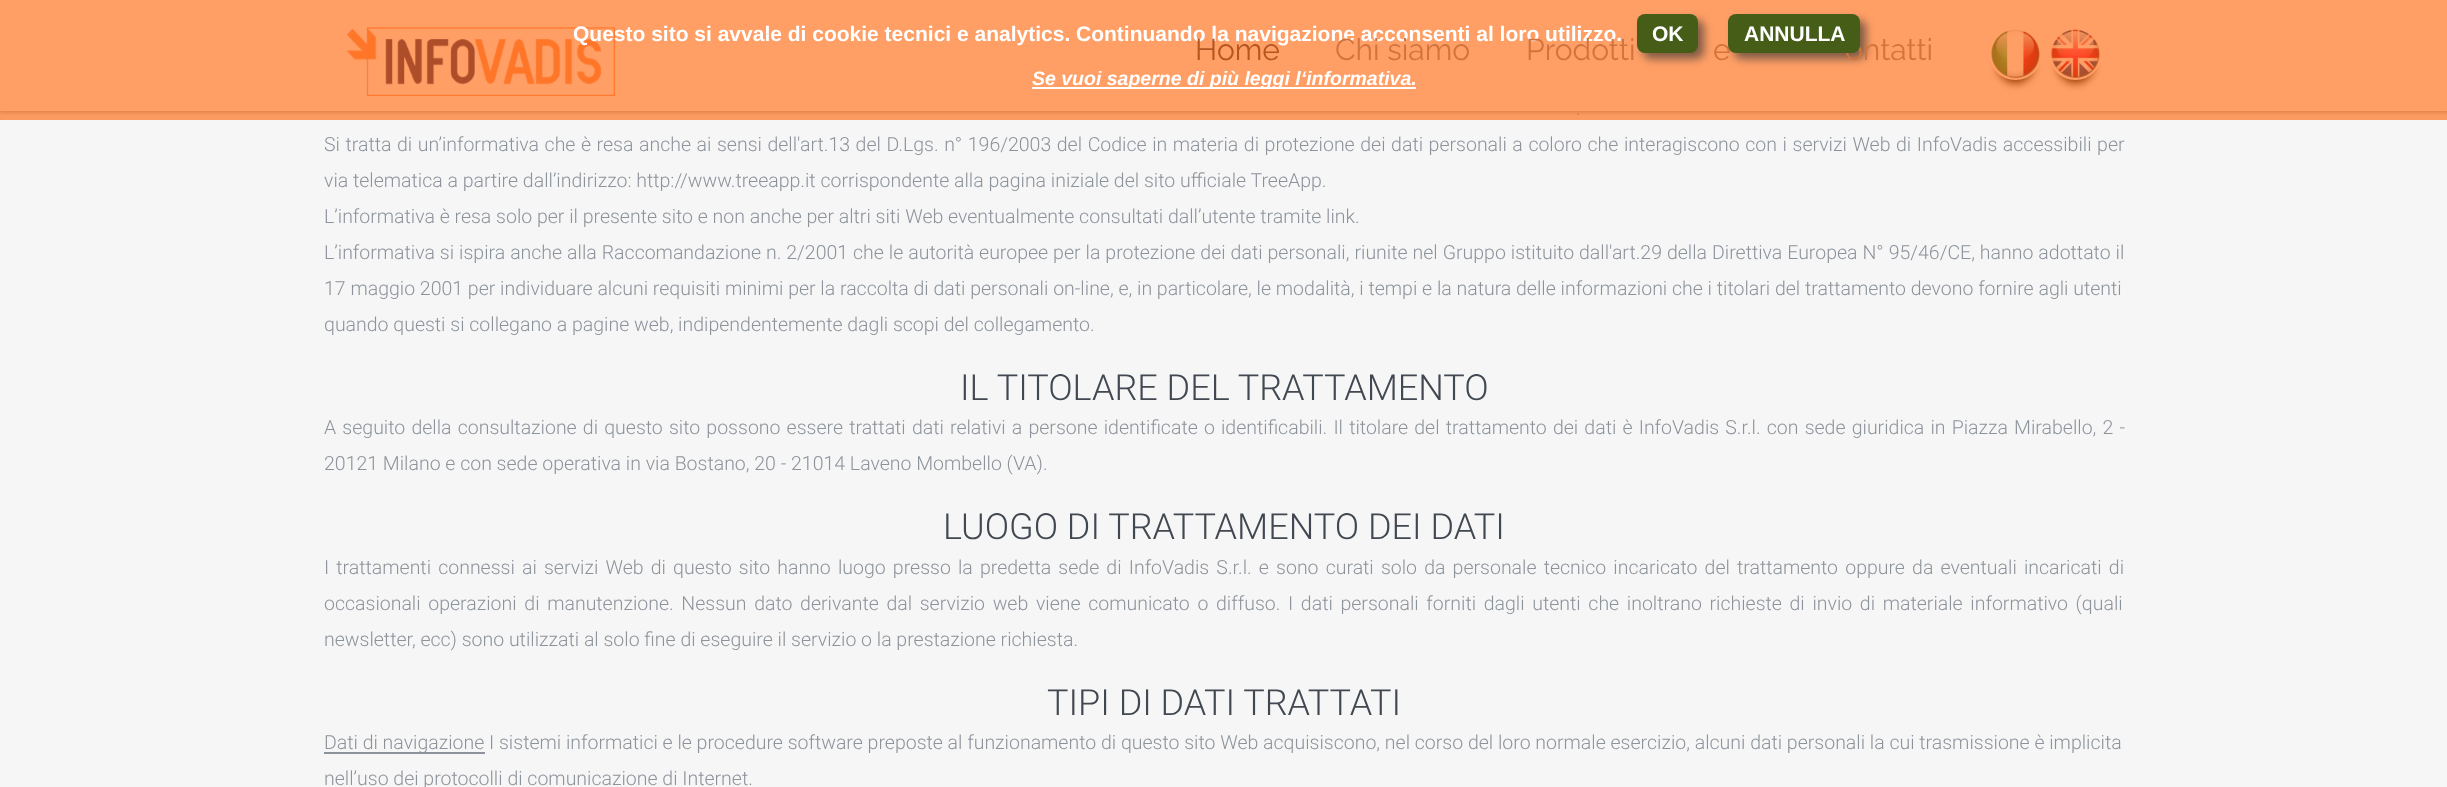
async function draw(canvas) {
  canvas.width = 2447
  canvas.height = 787
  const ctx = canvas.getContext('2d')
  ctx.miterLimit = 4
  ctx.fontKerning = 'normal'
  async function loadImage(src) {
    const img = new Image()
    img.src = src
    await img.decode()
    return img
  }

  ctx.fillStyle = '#f6f6f6'
  ctx.fillRect(0, 0, 2447, 787)
  ctx.fillStyle = '#fb9b62'
  ctx.fillRect(0, 111, 2447, 9)
  ctx.fillStyle = '#e4844b'
  ctx.filter = 'blur(1.5px)'
  ctx.beginPath()
  ctx.rect(0, 2, 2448, 111)
  ctx.fill()
  ctx.filter = 'none'
  ctx.fillStyle = '#ff9f66'
  ctx.fillRect(0, 0, 2447, 111)
  ctx.drawImage(await loadImage('image0.png'), 346, 27, 269, 69)
  ctx.font = 'bold 21px Liberation Sans'
  ctx.fillStyle = '#fff'
  ctx.fillText('Questo sito si avvale di cookie tecnici e analytics. Continuando la navigazione acconsenti al loro utilizzo.', 573, 41)
  ctx.fillStyle = '#3232329e'
  ctx.filter = 'blur(4px)'
  ctx.beginPath()
  ctx.roundRect(1643, 20, 61, 39, 8)
  ctx.fill()
  ctx.filter = 'none'
  ctx.fillStyle = '#465d18'
  ctx.beginPath()
  ctx.roundRect(1637, 14, 61, 39, 8)
  ctx.fill()
  ctx.fillStyle = '#fff'
  ctx.fillText('OK', 1652, 41)
  ctx.fillStyle = '#3232329e'
  ctx.filter = 'blur(4px)'
  ctx.beginPath()
  ctx.roundRect(1734, 20, 132, 39, 8)
  ctx.fill()
  ctx.filter = 'none'
  ctx.font = '30px Raleway'
  ctx.fillStyle = '#d1743e'
  ctx.fillText('e', 1713, 60)
  ctx.fillText('ontatti', 1845, 60)
  ctx.fillStyle = '#465d18'
  ctx.beginPath()
  ctx.roundRect(1728, 14, 132, 39, 8)
  ctx.fill()
  ctx.font = 'bold 21px Liberation Sans'
  ctx.fillStyle = '#fff'
  ctx.fillText('ANNULLA', 1744, 41)
  ctx.fillRect(1032, 87, 384, 2)
  ctx.font = 'italic bold 19.5px Liberation Sans'
  ctx.fillText('Se vuoi saperne di più leggi l‘informativa.', 1032, 85)
  ctx.font = '30px Raleway'
  ctx.fillStyle = '#b35620'
  ctx.fillText('Home', 1195, 60)
  ctx.fillStyle = '#d1743e'
  ctx.fillText('Chi siamo', 1335, 60)
  ctx.fillText('Prodotti', 1526, 60)
  ctx.save()
  ctx.beginPath()
  ctx.moveTo(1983, 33)
  ctx.lineTo(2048, 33)
  ctx.lineTo(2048, 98)
  ctx.lineTo(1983, 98)
  ctx.closePath()
  ctx.moveTo(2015.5, 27)
  ctx.bezierCurveTo(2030, 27, 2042, 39, 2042, 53.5)
  ctx.bezierCurveTo(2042, 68, 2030, 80, 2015.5, 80)
  ctx.bezierCurveTo(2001, 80, 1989, 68, 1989, 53.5)
  ctx.bezierCurveTo(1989, 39, 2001, 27, 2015.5, 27)
  ctx.closePath()
  ctx.clip('evenodd')
  ctx.fillStyle = '#993900'
  ctx.filter = 'blur(4.5px)'
  ctx.beginPath()
  ctx.roundRect(1998, 48, 35, 35, 17.5)
  ctx.fill()
  ctx.filter = 'none'
  ctx.restore()
  ctx.drawImage(await loadImage('image1.png'), 1991, 29, 49, 50)
  ctx.save()
  ctx.beginPath()
  ctx.moveTo(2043, 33)
  ctx.lineTo(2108, 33)
  ctx.lineTo(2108, 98)
  ctx.lineTo(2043, 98)
  ctx.closePath()
  ctx.moveTo(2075.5, 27)
  ctx.bezierCurveTo(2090, 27, 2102, 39, 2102, 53.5)
  ctx.bezierCurveTo(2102, 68, 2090, 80, 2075.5, 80)
  ctx.bezierCurveTo(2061, 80, 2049, 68, 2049, 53.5)
  ctx.bezierCurveTo(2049, 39, 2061, 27, 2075.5, 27)
  ctx.closePath()
  ctx.clip('evenodd')
  ctx.fillStyle = '#993900'
  ctx.filter = 'blur(4.5px)'
  ctx.beginPath()
  ctx.roundRect(2058, 48, 35, 35, 17.5)
  ctx.fill()
  ctx.filter = 'none'
  ctx.restore()
  ctx.drawImage(await loadImage('image2.png'), 2051, 29, 49, 50)
  ctx.font = '300 19.5px Roboto'
  ctx.fillText('.', 1576, 115)
  ctx.wordSpacing = '0.8px'
  ctx.fillStyle = '#8d939b'
  ctx.fillText('Si tratta di un’informativa che è resa anche ai sensi dell\'art.13 del D.Lgs. n° 196/2003 del Codice in materia di protezione dei dati personali a coloro che interagiscono con i servizi Web di InfoVadis accessibili per', 324, 151)
  ctx.wordSpacing = '0px'
  ctx.fillText('via telematica a partire dall’indirizzo: http://www.treeapp.it corrispondente alla pagina iniziale del sito ufficiale TreeApp.', 324, 187)
  ctx.fillText('L’informativa è resa solo per il presente sito e non anche per altri siti Web eventualmente consultati dall’utente tramite link.', 324, 223)
  ctx.wordSpacing = '0.2px'
  ctx.fillText('L’informativa si ispira anche alla Raccomandazione n. 2/2001 che le autorità europee per la protezione dei dati personali, riunite nel Gruppo istituito dall\'art.29 della Direttiva Europea N° 95/46/CE, hanno adottato il', 324, 259)
  ctx.wordSpacing = '0px'
  ctx.fillText('17 maggio 2001 per individuare alcuni requisiti minimi per la raccolta di dati personali on-line, e, in particolare, le modalità, i tempi e la natura delle informazioni che i titolari del trattamento devono fornire agli utenti', 324, 295)
  ctx.fillText('quando questi si collegano a pagine web, indipendentemente dagli scopi del collegamento.', 324, 331)
  ctx.font = '300 36px Roboto'
  ctx.fillStyle = '#414851'
  ctx.fillText('IL TITOLARE DEL TRATTAMENTO', 960, 400)
  ctx.wordSpacing = '1.4px'
  ctx.font = '300 19.5px Roboto'
  ctx.fillStyle = '#8d939b'
  ctx.fillText('A seguito della consultazione di questo sito possono essere trattati dati relativi a persone identificate o identificabili. Il titolare del trattamento dei dati è InfoVadis S.r.l. con sede giuridica in Piazza Mirabello, 2 -', 324, 434)
  ctx.wordSpacing = '0px'
  ctx.fillText('20121 Milano e con sede operativa in via Bostano, 20 - 21014 Laveno Mombello (VA).', 324, 470)
  ctx.font = '300 36px Roboto'
  ctx.fillStyle = '#414851'
  ctx.fillText('LUOGO DI TRATTAMENTO DEI DATI', 943, 539)
  ctx.wordSpacing = '2.4px'
  ctx.font = '300 19.5px Roboto'
  ctx.fillStyle = '#8d939b'
  ctx.fillText('I trattamenti connessi ai servizi Web di questo sito hanno luogo presso la predetta sede di InfoVadis S.r.l. e sono curati solo da personale tecnico incaricato del trattamento oppure da eventuali incaricati di', 324, 574)
  ctx.wordSpacing = '2.9px'
  ctx.fillText('occasionali operazioni di manutenzione. Nessun dato derivante dal servizio web viene comunicato o diffuso. I dati personali forniti dagli utenti che inoltrano richieste di invio di materiale informativo (quali', 324, 610)
  ctx.wordSpacing = '0px'
  ctx.fillText('newsletter, ecc) sono utilizzati al solo fine di eseguire il servizio o la prestazione richiesta.', 324, 646)
  ctx.font = '300 36px Roboto'
  ctx.fillStyle = '#414851'
  ctx.fillText('TIPI DI DATI TRATTATI', 1047, 715)
  ctx.fillStyle = '#8d939b'
  ctx.fillRect(324, 752, 161, 2)
  ctx.font = '300 19.5px Roboto'
  ctx.fillText('Dati di navigazione I sistemi informatici e le procedure software preposte al funzionamento di questo sito Web acquisiscono, nel corso del loro normale esercizio, alcuni dati personali la cui trasmissione è implicita', 324, 749)
  ctx.fillText('nell’uso dei protocolli di comunicazione di Internet.', 324, 785)
}

draw(document.querySelector('canvas'))
